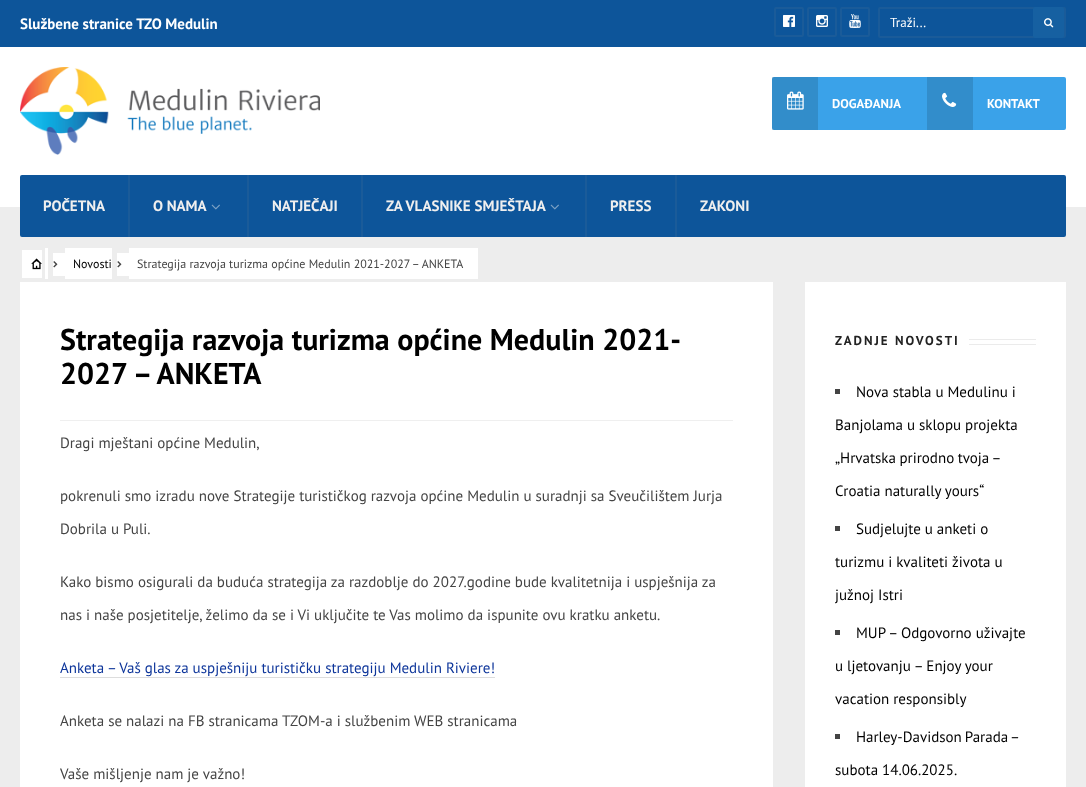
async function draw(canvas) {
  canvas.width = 1086
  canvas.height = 787
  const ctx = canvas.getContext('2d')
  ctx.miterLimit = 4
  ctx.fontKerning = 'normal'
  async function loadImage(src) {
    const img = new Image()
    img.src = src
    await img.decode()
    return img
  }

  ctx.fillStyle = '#ededed'
  ctx.fillRect(0, 0, 1086, 787)
  ctx.fillStyle = '#0d559a'
  ctx.fillRect(0, 0, 1086, 47)
  ctx.font = 'bold 15px PT Sans'
  ctx.fillStyle = '#fff'
  ctx.fillText('Službene stranice TZO Medulin', 20, 29)
  ctx.beginPath()
  ctx.roundRect(775, 8, 28, 28, 1)
  ctx.strokeStyle = '#1a5b99'
  ctx.lineWidth = 2
  ctx.stroke()
  ctx.drawImage(await loadImage('image0.png'), 783, 15, 12, 12)
  ctx.beginPath()
  ctx.roundRect(808, 8, 28, 28, 1)
  ctx.stroke()
  ctx.drawImage(await loadImage('image1.png'), 816, 15, 12, 12)
  ctx.beginPath()
  ctx.roundRect(841, 8, 28, 28, 1)
  ctx.stroke()
  ctx.drawImage(await loadImage('image2.png'), 849, 14, 12, 14)
  ctx.beginPath()
  ctx.roundRect(879, 8, 186, 29, 1)
  ctx.stroke()
  ctx.font = '13px PT Sans'
  ctx.fillText('Traži...', 890, 27)
  ctx.fillStyle = '#1660a1'
  ctx.beginPath()
  ctx.roundRect(1033, 7, 31, 31, 2)
  ctx.fill()
  ctx.drawImage(await loadImage('image3.png'), 1044, 18, 10, 10)
  ctx.fillStyle = '#fff'
  ctx.fillRect(0, 47, 1086, 160)
  ctx.drawImage(await loadImage('image4.png'), 20, 67, 300, 88)
  ctx.fillStyle = '#3aa2e9'
  ctx.beginPath()
  ctx.roundRect(772, 77, 294, 53, 2)
  ctx.fill()
  ctx.fillStyle = '#00000021'
  ctx.fillRect(772, 77, 46, 53)
  ctx.drawImage(await loadImage('image5.png'), 787, 91, 17, 19)
  ctx.font = 'bold 12.75px PT Sans'
  ctx.fillStyle = '#fff'
  ctx.fillText('DOGAĐANJA', 832, 108)
  ctx.fillStyle = '#328dcb'
  ctx.fillRect(927, 77, 46, 53)
  ctx.drawImage(await loadImage('image6.png'), 942, 92, 15, 15)
  ctx.fillStyle = '#fff'
  ctx.fillText('KONTAKT', 987, 108)
  ctx.fillStyle = '#0d559a'
  ctx.beginPath()
  ctx.roundRect(20, 175, 1046, 62, 2)
  ctx.fill()
  ctx.font = 'bold 15px PT Sans'
  ctx.fillStyle = '#efefef'
  ctx.fillText('POČETNA', 43, 211)
  ctx.fillStyle = '#1a5b99'
  ctx.fillRect(128, 175, 2, 62)
  ctx.fillStyle = '#efefef'
  ctx.fillText('O NAMA', 153, 211)
  ctx.drawImage(await loadImage('image7.png'), 211, 204, 9, 6)
  ctx.fillStyle = '#1a5b99'
  ctx.fillRect(247, 175, 2, 62)
  ctx.fillStyle = '#efefef'
  ctx.fillText('NATJEČAJI', 272, 211)
  ctx.fillStyle = '#1a5b99'
  ctx.fillRect(361, 175, 2, 62)
  ctx.fillStyle = '#efefef'
  ctx.fillText('ZA VLASNIKE SMJEŠTAJA', 386, 211)
  ctx.drawImage(await loadImage('image7.png'), 550, 204, 9, 6)
  ctx.fillStyle = '#1a5b99'
  ctx.fillRect(585, 175, 2, 62)
  ctx.fillStyle = '#efefef'
  ctx.fillText('PRESS', 610, 211)
  ctx.fillStyle = '#1a5b99'
  ctx.fillRect(675, 175, 2, 62)
  ctx.fillStyle = '#efefef'
  ctx.fillText('ZAKONI', 700, 211)
  ctx.fillStyle = '#fff'
  ctx.fillRect(22, 250, 20, 28)
  ctx.fillRect(45, 248, 3, 31)
  ctx.fillRect(53, 253, 12, 23)
  ctx.drawImage(await loadImage('image8.png'), 31, 258, 11, 12)
  ctx.drawImage(await loadImage('image9.png'), 53, 261, 5, 7)
  ctx.fillRect(65, 248, 47, 31)
  ctx.fillRect(117, 253, 12, 23)
  ctx.font = '12px PT Sans'
  ctx.fillStyle = '#000'
  ctx.fillText('Novosti', 73, 268)
  ctx.drawImage(await loadImage('image9.png'), 117, 261, 5, 7)
  ctx.fillStyle = '#fff'
  ctx.fillRect(129, 248, 349, 31)
  ctx.fillStyle = '#444'
  ctx.fillText('Strategija razvoja turizma općine Medulin 2021-2027 – ANKETA', 137, 268)
  ctx.fillStyle = '#fff'
  ctx.fillRect(20, 282, 753, 505)
  ctx.font = 'bold 30px PT Sans'
  ctx.fillStyle = '#000'
  ctx.fillText('Strategija razvoja turizma općine Medulin 2021-', 60, 350)
  ctx.fillText('2027 – ANKETA', 60, 384)
  ctx.fillStyle = '#efefef'
  ctx.fillRect(60, 420, 673, 1)
  ctx.font = '15px PT Sans'
  ctx.fillStyle = '#444'
  ctx.fillText('Dragi mještani općine Medulin,', 60, 448)
  ctx.fillText('pokrenuli smo izradu nove Strategije turističkog razvoja općine Medulin u suradnji sa Sveučilištem Jurja', 60, 501)
  ctx.fillText('Dobrila u Puli.', 60, 534)
  ctx.fillText('Kako bismo osigurali da buduća strategija za razdoblje do 2027.godine bude kvalitetnija i uspješnija za', 60, 587)
  ctx.fillText('nas i naše posjetitelje, želimo da se i Vi uključite te Vas molimo da ispunite ovu kratku anketu.', 60, 620)
  ctx.fillStyle = '#0d359a'
  ctx.fillText('Anketa – Vaš glas za uspješniju turističku strategiju Medulin Riviere!', 60, 673)
  ctx.fillStyle = '#ddd'
  ctx.fillRect(60, 677, 435, 1)
  ctx.fillStyle = '#444'
  ctx.fillText('Anketa se nalazi na FB stranicama TZOM-a i službenim WEB stranicama', 60, 726)
  ctx.fillText('Vaše mišljenje nam je važno!', 60, 779)
  ctx.fillStyle = '#fff'
  ctx.fillRect(805, 282, 261, 505)
  ctx.save()
  ctx.beginPath()
  ctx.rect(835, 312, 201, 58)
  ctx.clip()
  ctx.strokeStyle = '#ebebeb'
  ctx.lineWidth = 1
  ctx.strokeRect(835.5, 339.5, 202, 5)
  ctx.restore()
  ctx.fillRect(835, 339, 134, 6)
  ctx.save()
  ctx.beginPath()
  ctx.rect(835, 312, 201, 58)
  ctx.clip()
  ctx.letterSpacing = '2px'
  ctx.font = 'bold 13px PT Sans'
  ctx.fillStyle = '#222'
  ctx.fillText('ZADNJE NOVOSTI', 835, 345)
  ctx.restore()
  ctx.fillStyle = '#444'
  ctx.fillRect(835, 389, 5, 5)
  ctx.fillStyle = '#000'
  ctx.fillText('Nova stabla u Medulinu i', 856, 397)
  ctx.fillText('Banjolama u sklopu projekta', 835, 430)
  ctx.wordSpacing = '-0.5px'
  ctx.fillText('„Hrvatska prirodno tvoja –', 835, 463)
  ctx.wordSpacing = '0px'
  ctx.fillText('Croatia naturally yours“', 835, 496)
  ctx.fillStyle = '#444'
  ctx.fillRect(835, 526, 5, 5)
  ctx.fillStyle = '#000'
  ctx.fillText('Sudjelujte u anketi o', 856, 534)
  ctx.fillText('turizmu i kvaliteti života u', 835, 567)
  ctx.fillText('južnoj Istri', 835, 600)
  ctx.fillStyle = '#444'
  ctx.fillRect(835, 630, 5, 5)
  ctx.fillStyle = '#000'
  ctx.fillText('MUP – Odgovorno uživajte', 856, 638)
  ctx.fillText('u ljetovanju – Enjoy your', 835, 671)
  ctx.fillText('vacation responsibly', 835, 704)
  ctx.fillStyle = '#444'
  ctx.fillRect(835, 734, 5, 5)
  ctx.wordSpacing = '-1px'
  ctx.fillStyle = '#000'
  ctx.fillText('Harley-Davidson Parada –', 856, 742)
  ctx.wordSpacing = '0px'
  ctx.fillText('subota 14.06.2025.', 835, 775)
}

draw(document.querySelector('canvas'))
